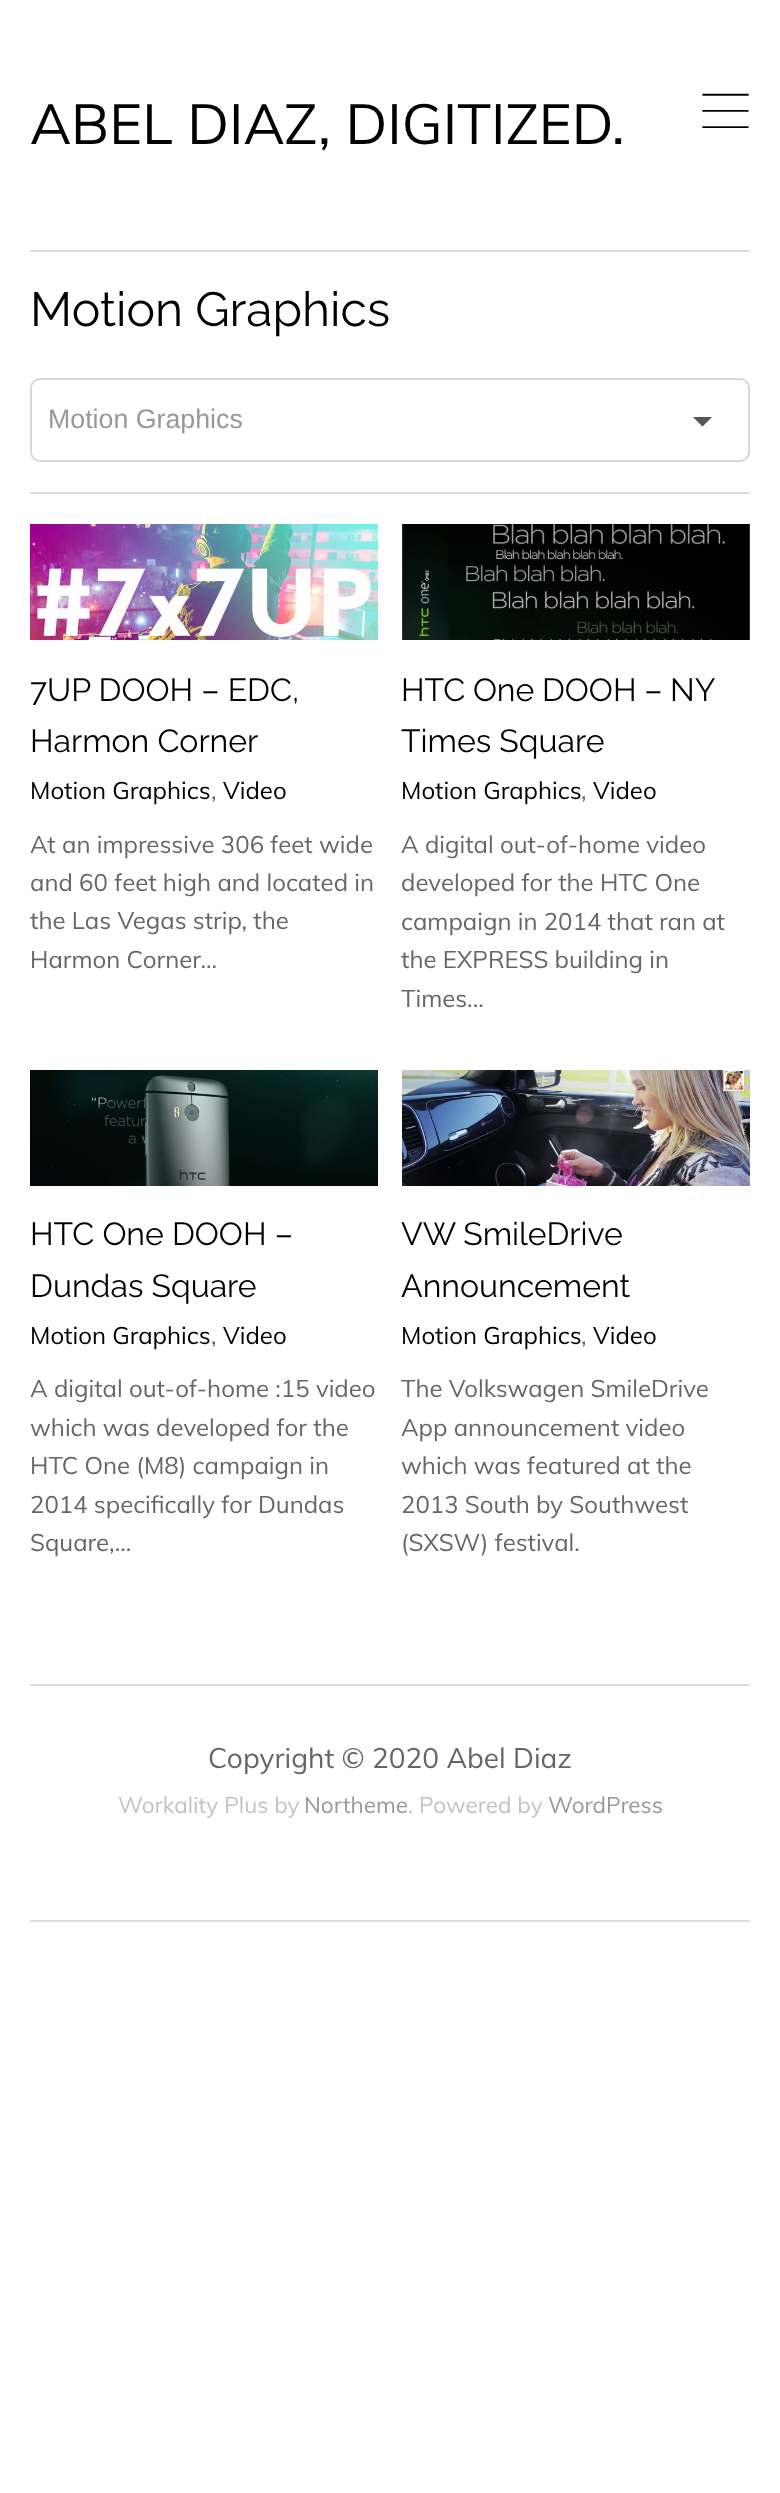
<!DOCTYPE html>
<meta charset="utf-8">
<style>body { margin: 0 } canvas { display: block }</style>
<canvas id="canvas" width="780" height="2493"></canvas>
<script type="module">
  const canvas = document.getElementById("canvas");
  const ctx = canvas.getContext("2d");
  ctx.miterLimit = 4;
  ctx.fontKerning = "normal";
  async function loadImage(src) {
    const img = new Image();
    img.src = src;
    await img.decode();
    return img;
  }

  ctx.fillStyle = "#ffffff";
  ctx.fillRect(0, 0, 780, 2493);
  ctx.fillStyle = "#dddddd";
  ctx.fillRect(30, 250, 720, 2);
  ctx.font = "56px Muli";
  ctx.fillStyle = "#000000";
  ctx.fillText("ABEL DIAZ, DIGITIZED.", 30, 144);
  ctx.font = "66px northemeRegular";
  ctx.fillText(",", 701, 134);
  ctx.fillStyle = "#dddddd";
  ctx.fillRect(30, 492, 720, 2);
  ctx.font = "48px Raleway";
  ctx.fillStyle = "#000000";
  ctx.fillText("Motion Graphics", 30, 326);
  ctx.drawImage(await loadImage("img1.png"), 693, 417, 19, 10);
  ctx.beginPath();
  ctx.roundRect(31, 379, 718, 82, 9);
  ctx.strokeStyle = "#d8d8d8";
  ctx.lineWidth = 2;
  ctx.stroke();
  ctx.font = "26.75px Liberation Sans";
  ctx.fillStyle = "#989898";
  ctx.fillText("Motion Graphics", 48, 428);
  ctx.drawImage(await loadImage("img2.png"), 30, 524, 348, 116);
  ctx.font = "32px Raleway";
  ctx.fillStyle = "#000000";
  ctx.fillText("7UP DOOH – EDC,", 30, 701);
  ctx.fillText("Harmon Corner", 30, 752);
  ctx.font = "24px Muli";
  ctx.fillText("Motion Graphics", 30, 799);
  ctx.fillStyle = "#666666";
  ctx.fillText(",", 211, 799);
  ctx.fillStyle = "#000000";
  ctx.fillText("Video", 223, 799);
  ctx.fillStyle = "#666666";
  ctx.fillText("At an impressive 306 feet wide", 30, 853);
  ctx.fillText("and 60 feet high and located in", 30, 891);
  ctx.fillText("the Las Vegas strip, the", 30, 929);
  ctx.fillText("Harmon Corner...", 30, 968);
  ctx.drawImage(await loadImage("img3.png"), 402, 524, 348, 116);
  ctx.wordSpacing = "-0.5px";
  ctx.font = "32px Raleway";
  ctx.fillStyle = "#000000";
  ctx.fillText("HTC One DOOH – NY", 401, 701);
  ctx.wordSpacing = "0px";
  ctx.fillText("Times Square", 401, 752);
  ctx.font = "24px Muli";
  ctx.fillText("Motion Graphics", 401, 799);
  ctx.fillStyle = "#666666";
  ctx.fillText(",", 581, 799);
  ctx.fillStyle = "#000000";
  ctx.fillText("Video", 593, 799);
  ctx.fillStyle = "#666666";
  ctx.fillText("A digital out-of-home video", 401, 853);
  ctx.fillText("developed for the HTC One", 401, 891);
  ctx.fillText("campaign in 2014 that ran at", 401, 930);
  ctx.fillText("the EXPRESS building in", 401, 968);
  ctx.fillText("Times...", 401, 1007);
  ctx.drawImage(await loadImage("img4.png"), 30, 1070, 348, 116);
  ctx.font = "32px Raleway";
  ctx.fillStyle = "#000000";
  ctx.fillText("HTC One DOOH –", 30, 1245);
  ctx.fillText("Dundas Square", 30, 1297);
  ctx.font = "24px Muli";
  ctx.fillText("Motion Graphics", 30, 1344);
  ctx.fillStyle = "#666666";
  ctx.fillText(",", 211, 1344);
  ctx.fillStyle = "#000000";
  ctx.fillText("Video", 223, 1344);
  ctx.fillStyle = "#666666";
  ctx.fillText("A digital out-of-home :15 video", 30, 1397);
  ctx.fillText("which was developed for the", 30, 1436);
  ctx.fillText("HTC One (M8) campaign in", 30, 1474);
  ctx.fillText("2014 specifically for Dundas", 30, 1513);
  ctx.fillText("Square,...", 30, 1551);
  ctx.drawImage(await loadImage("img5.png"), 402, 1070, 348, 116);
  ctx.font = "32px Raleway";
  ctx.fillStyle = "#000000";
  ctx.fillText("VW SmileDrive", 401, 1245);
  ctx.fillText("Announcement", 401, 1297);
  ctx.font = "24px Muli";
  ctx.fillText("Motion Graphics", 401, 1344);
  ctx.fillStyle = "#666666";
  ctx.fillText(",", 581, 1344);
  ctx.fillStyle = "#000000";
  ctx.fillText("Video", 593, 1344);
  ctx.fillStyle = "#666666";
  ctx.fillText("The Volkswagen SmileDrive", 401, 1397);
  ctx.fillText("App announcement video", 401, 1436);
  ctx.fillText("which was featured at the", 401, 1474);
  ctx.fillText("2013 South by Southwest", 401, 1513);
  ctx.fillText("(SXSW) festival.", 401, 1551);
  ctx.fillStyle = "#dddddd";
  ctx.fillRect(30, 1684, 720, 2);
  ctx.fillRect(30, 1920, 720, 2);
  ctx.font = "28px Muli";
  ctx.fillStyle = "#666666";
  ctx.fillText("Copyright © 2020 Abel Diaz", 208, 1768);
  ctx.font = "22.5px Muli";
  ctx.fillStyle = "#c2c2c2";
  ctx.fillText("Workality Plus by", 118, 1813);
  ctx.fillStyle = "#989898";
  ctx.fillText("Northeme", 304, 1813);
  ctx.fillStyle = "#c2c2c2";
  ctx.fillText(". Powered by", 408, 1813);
  ctx.fillStyle = "#989898";
  ctx.fillText("WordPress", 548, 1813);
</script>
